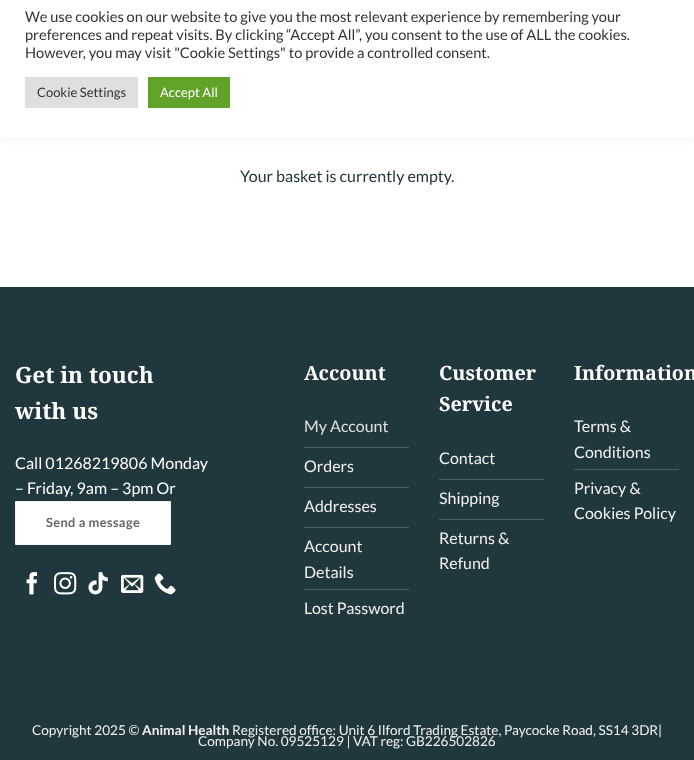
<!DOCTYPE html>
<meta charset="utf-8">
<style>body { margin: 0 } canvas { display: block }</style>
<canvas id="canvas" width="694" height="760"></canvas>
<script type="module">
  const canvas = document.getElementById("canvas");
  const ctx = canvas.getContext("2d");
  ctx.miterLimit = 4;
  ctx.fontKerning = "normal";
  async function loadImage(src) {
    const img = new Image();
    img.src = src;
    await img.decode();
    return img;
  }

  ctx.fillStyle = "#ffffff";
  ctx.fillRect(0, 0, 694, 760);
  ctx.fillStyle = "rgba(172, 171, 171, 0.3)";
  ctx.filter = "blur(5px)";
  ctx.beginPath();
  ctx.rect(0, -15, 694, 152);
  ctx.fill();
  ctx.filter = "none";
  ctx.fillStyle = "#ffffff";
  ctx.fillRect(0, 0, 694, 138);
  ctx.font = "14.65px Lato";
  ctx.fillStyle = "#333333";
  ctx.fillText("We use cookies on our website to give you the most relevant experience by remembering your", 25, 22);
  ctx.fillText("preferences and repeat visits. By clicking “Accept All”, you consent to the use of ALL the cookies.", 25, 40);
  ctx.fillText("However, you may visit \"Cookie Settings\" to provide a controlled consent.", 25, 58);
  ctx.fillStyle = "#dedfe0";
  ctx.fillRect(25, 77, 113, 31);
  ctx.font = "13px Lato";
  ctx.fillStyle = "#333333";
  ctx.fillText("Cookie Settings", 37, 97);
  ctx.fillStyle = "#61a229";
  ctx.fillRect(148, 77, 82, 31);
  ctx.fillStyle = "#ffffff";
  ctx.fillText("Accept All", 160, 97);
  ctx.font = "16px Lato";
  ctx.fillStyle = "#20373d";
  ctx.fillText("Your basket is currently empty.", 240, 182);
  ctx.fillRect(0, 287, 694, 473);
  ctx.font = "bold 22.5px Noto Serif";
  ctx.fillStyle = "#ffffff";
  ctx.fillText("Get in touch", 15, 383);
  ctx.fillText("with us", 15, 419);
  ctx.font = "16px Lato";
  ctx.fillText("Call 01268219806 Monday", 15, 469);
  ctx.fillText("– Friday, 9am – 3pm Or", 15, 494);
  ctx.beginPath();
  ctx.rect(15.5, 501.5, 155, 43);
  ctx.fill();
  ctx.strokeStyle = "#f2f2f2";
  ctx.stroke();
  ctx.letterSpacing = "0.4px";
  ctx.font = "bold 12.75px Lato";
  ctx.fillStyle = "#666666";
  ctx.fillText("Send a message", 46, 527);
  ctx.drawImage(await loadImage("img1.png"), 26, 572, 11, 23);
  ctx.drawImage(await loadImage("img2.png"), 54, 572, 23, 23);
  ctx.drawImage(await loadImage("img3.png"), 88, 572, 20, 23);
  ctx.drawImage(await loadImage("img4.png"), 121, 574, 23, 19);
  ctx.drawImage(await loadImage("img5.png"), 154, 573, 22, 22);
  ctx.letterSpacing = "0px";
  ctx.font = "bold 19.75px Noto Serif";
  ctx.fillStyle = "#ffffff";
  ctx.fillText("Account", 304, 380);
  ctx.fillStyle = "#4d5f64";
  ctx.fillRect(304, 447, 105, 1);
  ctx.font = "16px Lato";
  ctx.fillStyle = "#dee1e2";
  ctx.fillText("My Account", 304, 432);
  ctx.fillStyle = "#4d5f64";
  ctx.fillRect(304, 487, 105, 1);
  ctx.fillStyle = "#f1f1f1";
  ctx.fillText("Orders", 304, 472);
  ctx.fillStyle = "#4d5f64";
  ctx.fillRect(304, 527, 105, 1);
  ctx.fillStyle = "#f1f1f1";
  ctx.fillText("Addresses", 304, 512);
  ctx.fillStyle = "#4d5f64";
  ctx.fillRect(304, 589, 105, 1);
  ctx.fillStyle = "#f1f1f1";
  ctx.fillText("Account", 304, 552);
  ctx.fillText("Details", 304, 578);
  ctx.fillText("Lost Password", 304, 614);
  ctx.font = "bold 19.75px Noto Serif";
  ctx.fillStyle = "#ffffff";
  ctx.fillText("Customer", 439, 380);
  ctx.fillText("Service", 439, 411);
  ctx.fillStyle = "#4d5f64";
  ctx.fillRect(439, 479, 105, 1);
  ctx.font = "16px Lato";
  ctx.fillStyle = "#f1f1f1";
  ctx.fillText("Contact", 439, 464);
  ctx.fillStyle = "#4d5f64";
  ctx.fillRect(439, 519, 105, 1);
  ctx.fillStyle = "#f1f1f1";
  ctx.fillText("Shipping", 439, 504);
  ctx.fillText("Returns &", 439, 544);
  ctx.fillText("Refund", 439, 569);
  ctx.font = "bold 19.75px Noto Serif";
  ctx.fillStyle = "#ffffff";
  ctx.fillText("Information", 574, 380);
  ctx.fillStyle = "#4d5f64";
  ctx.fillRect(574, 469, 105, 1);
  ctx.font = "16px Lato";
  ctx.fillStyle = "#f1f1f1";
  ctx.fillText("Terms &", 574, 432);
  ctx.fillText("Conditions", 574, 458);
  ctx.fillText("Privacy &", 574, 494);
  ctx.fillText("Cookies Policy", 574, 519);
  ctx.font = "13.6px Lato";
  ctx.fillText("Copyright 2025 ©", 32, 735);
  ctx.font = "bold 13.6px Lato";
  ctx.fillText("Animal Health", 142, 735);
  ctx.font = "13.6px Lato";
  ctx.fillText("Registered office: Unit 6 Ilford Trading Estate, Paycocke Road, SS14 3DR|", 232, 735);
  ctx.fillText("Company No. 09525129 | VAT reg: GB226502826", 198, 746);
</script>
